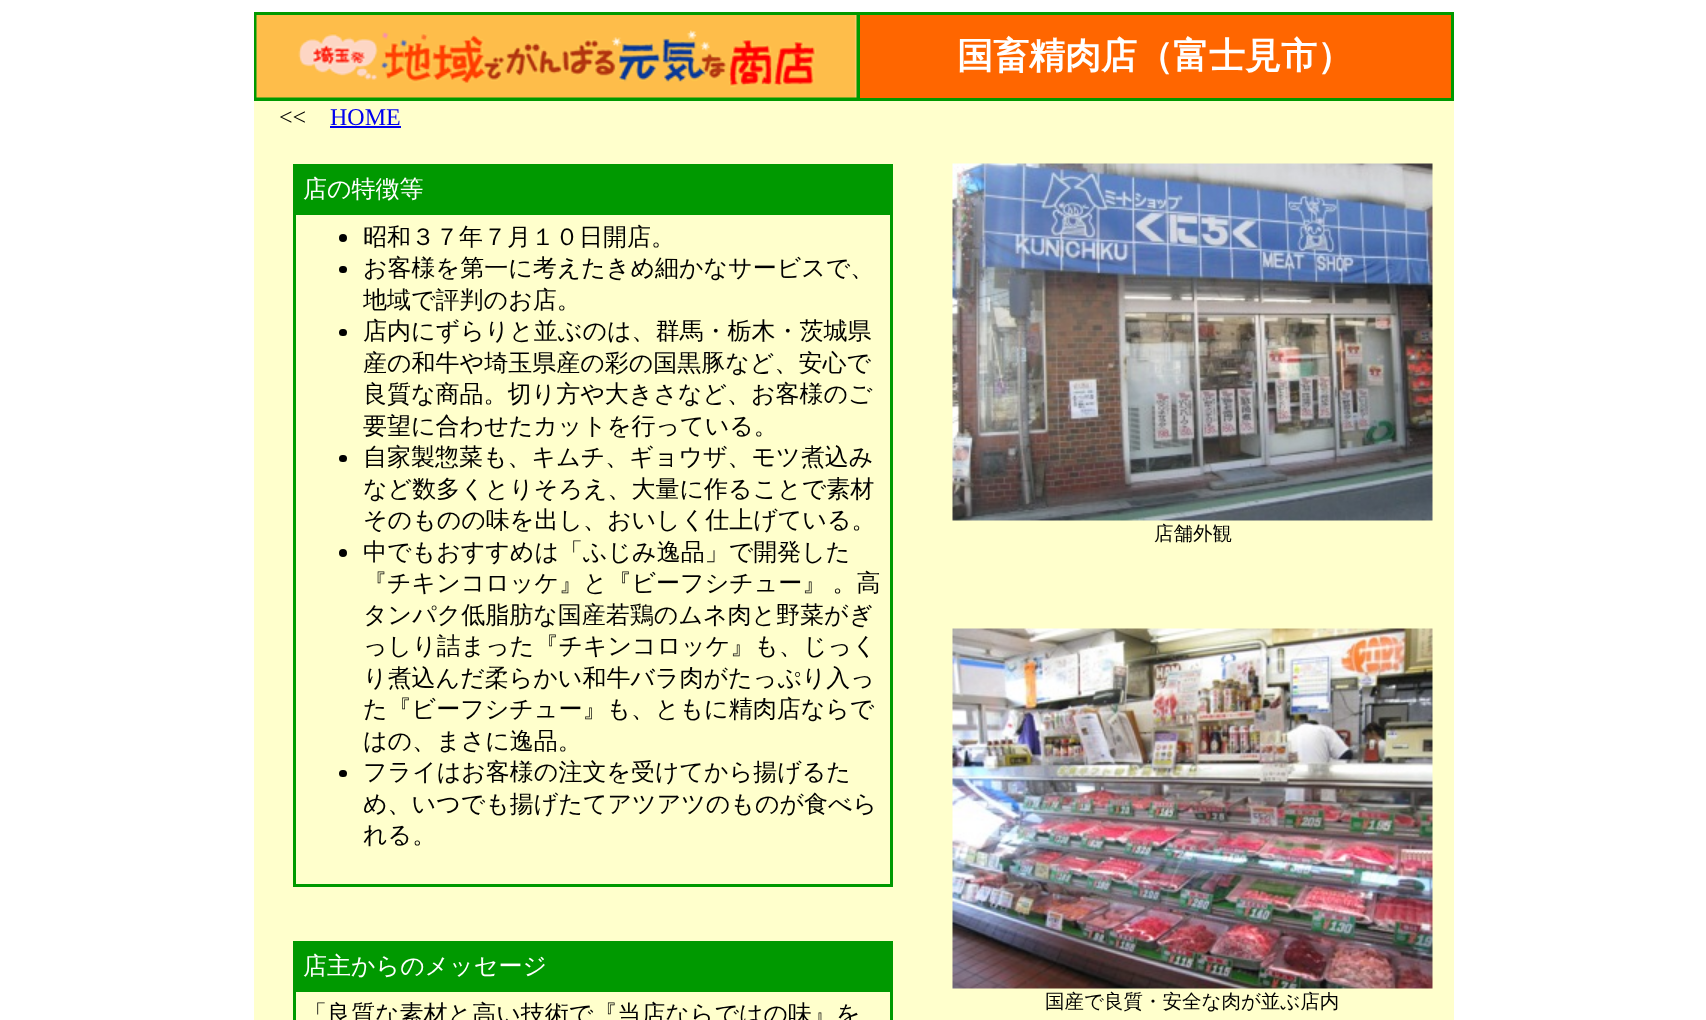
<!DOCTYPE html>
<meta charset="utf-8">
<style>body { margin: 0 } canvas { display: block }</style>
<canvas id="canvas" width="1706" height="1020"></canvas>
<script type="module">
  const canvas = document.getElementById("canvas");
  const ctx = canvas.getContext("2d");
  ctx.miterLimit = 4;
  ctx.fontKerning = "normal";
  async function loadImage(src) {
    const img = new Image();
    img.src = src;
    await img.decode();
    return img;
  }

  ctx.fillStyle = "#ffffff";
  ctx.fillRect(0, 0, 1706, 1020);
  ctx.fillStyle = "#009900";
  ctx.fillRect(254, 12, 1200, 89);
  ctx.drawImage(await loadImage("img1.png"), 256, 15, 601, 83);
  ctx.fillStyle = "#ff6600";
  ctx.fillRect(860, 15, 591, 83);
  ctx.font = "bold 36px WenQuanYi Zen Hei";
  ctx.fillStyle = "#ffffff";
  ctx.fillText("国畜精肉店（富士見市）", 957, 68);
  ctx.fillStyle = "#ffffcc";
  ctx.fillRect(254, 101, 1200, 919);
  ctx.font = "24px Liberation Serif";
  ctx.fillStyle = "#000000";
  ctx.fillText("<<", 279, 125);
  ctx.fillStyle = "#0000ee";
  ctx.fillText("HOME", 330, 125);
  ctx.fillRect(330, 126, 71, 2);
  ctx.fillStyle = "#009900";
  ctx.fillRect(293, 164, 600, 723);
  ctx.font = "500 24px WenQuanYi Zen Hei";
  ctx.fillStyle = "#ffffff";
  ctx.fillText("店の特徴等", 303, 197);
  ctx.fillStyle = "#ffffcc";
  ctx.fillRect(296, 215, 594, 669);
  ctx.fillStyle = "#000000";
  ctx.beginPath();
  ctx.arc(343, 238, 4, 0, Math.PI * 2);
  ctx.fill();
  ctx.fillText("昭和３７年７月１０日開店。", 363, 245);
  ctx.beginPath();
  ctx.roundRect(339, 266, 8, 7, 3.5);
  ctx.fill();
  ctx.fillText("お客様を第一に考えたきめ細かなサービスで、", 363, 276);
  ctx.fillText("地域で評判のお店。", 363, 308);
  ctx.beginPath();
  ctx.roundRect(339, 329, 8, 7, 3.5);
  ctx.fill();
  ctx.fillText("店内にずらりと並ぶのは、群馬・栃木・茨城県", 363, 339);
  ctx.fillText("産の和牛や埼玉県産の彩の国黒豚など、安心で", 363, 371);
  ctx.fillText("良質な商品。切り方や大きさなど、お客様のご", 363, 402);
  ctx.fillText("要望に合わせたカットを行っている。", 363, 434);
  ctx.beginPath();
  ctx.roundRect(339, 455, 8, 7, 3.5);
  ctx.fill();
  ctx.fillText("自家製惣菜も、キムチ、ギョウザ、モツ煮込み", 363, 465);
  ctx.fillText("など数多くとりそろえ、大量に作ることで素材", 363, 497);
  ctx.fillText("そのものの味を出し、おいしく仕上げている。", 363, 528);
  ctx.beginPath();
  ctx.arc(343, 553, 4, 0, Math.PI * 2);
  ctx.fill();
  ctx.fillText("中でもおすすめは「ふじみ逸品」で開発した", 363, 560);
  ctx.wordSpacing = "-1px";
  ctx.fillText("『チキンコロッケ』と『ビーフシチュー』 。高", 363, 591);
  ctx.wordSpacing = "0px";
  ctx.fillText("タンパク低脂肪な国産若鶏のムネ肉と野菜がぎ", 363, 623);
  ctx.fillText("っしり詰まった『チキンコロッケ』も、じっく", 363, 654);
  ctx.fillText("り煮込んだ柔らかい和牛バラ肉がたっぷり入っ", 363, 686);
  ctx.fillText("た『ビーフシチュー』も、ともに精肉店ならで", 363, 717);
  ctx.fillText("はの、まさに逸品。", 363, 749);
  ctx.beginPath();
  ctx.roundRect(339, 770, 8, 7, 3.5);
  ctx.fill();
  ctx.fillText("フライはお客様の注文を受けてから揚げるた", 363, 780);
  ctx.fillText("め、いつでも揚げたてアツアツのものが食べら", 363, 812);
  ctx.fillText("れる。", 363, 843);
  ctx.fillStyle = "#009900";
  ctx.fillRect(293, 941, 600, 79);
  ctx.fillStyle = "#ffffff";
  ctx.fillText("店主からのメッセージ", 303, 974);
  ctx.fillStyle = "#ffffcc";
  ctx.fillRect(296, 992, 594, 28);
  ctx.fillStyle = "#000000";
  ctx.fillText("「良質な素材と高い技術で『当店ならではの味』を", 303, 1022);
  ctx.drawImage(await loadImage("img2.png"), 952, 163, 481, 358);
  ctx.font = "500 19.5px WenQuanYi Zen Hei";
  ctx.fillText("店舗外観", 1154, 540);
  ctx.drawImage(await loadImage("img3.png"), 952, 628, 481, 361);
  ctx.fillText("国産で良質・安全な肉が並ぶ店内", 1045, 1008);
</script>
